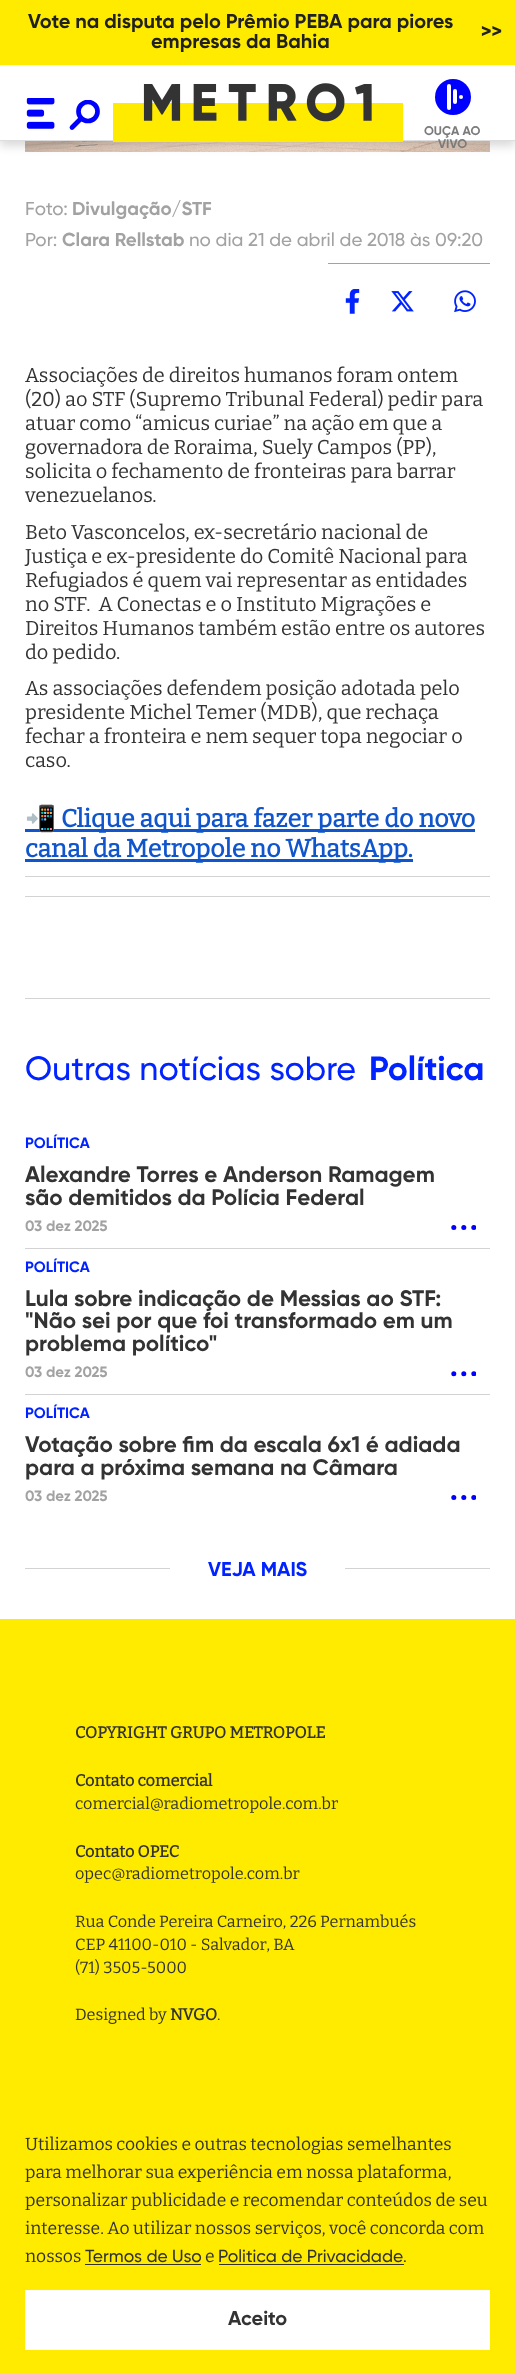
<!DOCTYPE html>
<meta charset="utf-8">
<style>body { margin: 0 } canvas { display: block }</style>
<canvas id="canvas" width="515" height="2374"></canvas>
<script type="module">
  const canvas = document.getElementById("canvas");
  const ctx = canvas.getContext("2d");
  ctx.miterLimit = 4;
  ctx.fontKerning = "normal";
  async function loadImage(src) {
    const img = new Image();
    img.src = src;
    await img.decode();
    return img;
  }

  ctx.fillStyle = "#ffffff";
  ctx.fillRect(0, 0, 515, 2374);
  ctx.drawImage(await loadImage("img3.png"), 25, 141, 465, 11);
  ctx.fillStyle = "rgba(0, 0, 0, 0.15)";
  ctx.filter = "blur(5px)";
  ctx.beginPath();
  ctx.rect(0, 5, 515, 141);
  ctx.fill();
  ctx.filter = "none";
  ctx.fillStyle = "#ffffff";
  ctx.fillRect(0, 65, 515, 75);
  ctx.fillStyle = "#dddddd";
  ctx.fillRect(0, 140, 515, 1);
  ctx.fillStyle = "#ffeb00";
  ctx.fillRect(0, 0, 515, 65);
  ctx.font = "bold 20px Gilroy";
  ctx.fillStyle = "#212121";
  ctx.fillText("Vote na disputa pelo Prêmio PEBA para piores", 28, 28);
  ctx.fillText("empresas da Bahia", 151, 48);
  ctx.fillText(">>", 481, 38);
  ctx.drawImage(await loadImage("img1.png"), 26, 98, 29, 31);
  ctx.save();
  ctx.beginPath();
  ctx.rect(69, 100, 31, 30);
  ctx.clip();
  ctx.beginPath();
  ctx.arc(88, 111.5, 9.5, 0, Math.PI * 2);
  ctx.strokeStyle = "#0000ff";
  ctx.lineWidth = 4.7;
  ctx.stroke();
  ctx.restore();
  ctx.beginPath();
  ctx.moveTo(81, 118.5);
  ctx.lineTo(72, 127.5);
  ctx.strokeStyle = "#0000ff";
  ctx.lineWidth = 4.7;
  ctx.lineCap = "round";
  ctx.stroke();
  ctx.drawImage(await loadImage("img2.png"), 113, 83, 290, 59);
  ctx.fillStyle = "#0000ff";
  ctx.beginPath();
  ctx.arc(453, 97, 18, 0, Math.PI * 2);
  ctx.fill();
  ctx.fillStyle = "#ffffff";
  ctx.beginPath();
  ctx.roundRect(447, 84, 4, 26, 2);
  ctx.fill();
  ctx.beginPath();
  ctx.roundRect(453, 89, 4, 15, 2);
  ctx.fill();
  ctx.beginPath();
  ctx.arc(461, 97, 2, 0, Math.PI * 2);
  ctx.fill();
  ctx.font = "bold 12.5px Gilroy";
  ctx.fillStyle = "#7b7b7b";
  ctx.fillText("OUÇA AO", 424, 135);
  ctx.fillText("VIVO", 438, 148);
  ctx.font = "500 18.75px Gilroy";
  ctx.fillStyle = "#a2a2a2";
  ctx.fillText("Foto:", 25, 215);
  ctx.font = "bold 18.75px Gilroy";
  ctx.fillText("Divulgação/STF", 72, 215);
  ctx.font = "500 18.75px Gilroy";
  ctx.fillText("Por:", 25, 246);
  ctx.font = "bold 18.75px Gilroy";
  ctx.fillText("Clara Rellstab", 62, 246);
  ctx.font = "500 18.75px Gilroy";
  ctx.fillText("no dia 21 de abril de 2018 às 09:20", 189, 246);
  ctx.fillRect(328, 263, 162, 1);
  ctx.drawImage(await loadImage("img4.png"), 345, 289, 15, 25);
  ctx.drawImage(await loadImage("img5.png"), 391, 291, 23, 21);
  ctx.drawImage(await loadImage("img6.png"), 454, 290, 22, 23);
  ctx.font = "20px Bitter";
  ctx.fillStyle = "#333333";
  ctx.fillText("Associações de direitos humanos foram ontem", 25, 382);
  ctx.fillText("(20) ao STF (Supremo Tribunal Federal) pedir para", 25, 406);
  ctx.fillText("atuar como “amicus curiae” na ação em que a", 25, 430);
  ctx.fillText("governadora de Roraima, Suely Campos (PP),", 25, 454);
  ctx.fillText("solicita o fechamento de fronteiras para barrar", 25, 478);
  ctx.fillText("venezuelanos.", 25, 502);
  ctx.fillText("Beto Vasconcelos, ex-secretário nacional de", 25, 539);
  ctx.fillText("Justiça e ex-presidente do Comitê Nacional para", 25, 563);
  ctx.fillText("Refugiados é quem vai representar as entidades", 25, 587);
  ctx.fillText("no STF.  A Conectas e o Instituto Migrações e", 25, 611);
  ctx.fillText("Direitos Humanos também estão entre os autores", 25, 635);
  ctx.fillText("do pedido.", 25, 659);
  ctx.fillText("As associações defendem posição adotada pelo", 25, 695);
  ctx.fillText("presidente Michel Temer (MDB), que rechaça", 25, 719);
  ctx.fillText("fechar a fronteira e nem sequer topa negociar o", 25, 743);
  ctx.fillText("caso.", 25, 767);
  ctx.fillStyle = "#d3d3d3";
  ctx.fillRect(25, 876, 465, 1);
  ctx.fillStyle = "#1155cc";
  ctx.fillRect(25, 829, 450, 3);
  ctx.font = "bold 25px Noto Color Emoji";
  ctx.fillText("📲", 25, 827);
  ctx.font = "bold 25px Bitter";
  ctx.fillText("Clique aqui para fazer parte do novo", 61, 827);
  ctx.fillRect(25, 859, 388, 3);
  ctx.fillText("canal da Metropole no WhatsApp.", 25, 857);
  ctx.fillStyle = "#d3d3d3";
  ctx.fillRect(25, 896, 465, 1);
  ctx.fillRect(25, 998, 465, 1);
  ctx.font = "500 33.75px Gilroy";
  ctx.fillStyle = "#0023ff";
  ctx.fillText("Outras notícias sobre", 25, 1080);
  ctx.font = "bold 33.75px Gilroy";
  ctx.fillText("Política", 369, 1080);
  ctx.fillStyle = "#d3d3d3";
  ctx.fillRect(25, 1248, 465, 1);
  ctx.font = "bold 15px Gilroy";
  ctx.fillStyle = "#0023ff";
  ctx.fillText("POLÍTICA", 25, 1148);
  ctx.font = "bold 22.5px Gilroy";
  ctx.fillStyle = "#333333";
  ctx.fillText("Alexandre Torres e Anderson Ramagem", 25, 1182);
  ctx.fillText("são demitidos da Polícia Federal", 25, 1205);
  ctx.font = "bold 15px Gilroy";
  ctx.fillStyle = "#a2a2a2";
  ctx.fillText("03 dez 2025", 25, 1231);
  ctx.fillStyle = "#0000ff";
  ctx.beginPath();
  ctx.arc(453.8, 1227.5, 2.5, 0, Math.PI * 2);
  ctx.fill();
  ctx.beginPath();
  ctx.arc(463.8, 1227.5, 2.5, 0, Math.PI * 2);
  ctx.fill();
  ctx.save();
  ctx.beginPath();
  ctx.rect(451, 1225, 25, 5);
  ctx.clip();
  ctx.beginPath();
  ctx.arc(473.8, 1227.5, 2.5, 0, Math.PI * 2);
  ctx.fill();
  ctx.restore();
  ctx.fillStyle = "#d3d3d3";
  ctx.fillRect(25, 1394, 465, 1);
  ctx.fillStyle = "#0023ff";
  ctx.fillText("POLÍTICA", 25, 1272);
  ctx.font = "bold 22.5px Gilroy";
  ctx.fillStyle = "#333333";
  ctx.fillText("Lula sobre indicação de Messias ao STF:", 25, 1306);
  ctx.fillText("\"Não sei por que foi transformado em um", 25, 1328);
  ctx.fillText("problema político\"", 25, 1351);
  ctx.font = "bold 15px Gilroy";
  ctx.fillStyle = "#a2a2a2";
  ctx.fillText("03 dez 2025", 25, 1377);
  ctx.fillStyle = "#0000ff";
  ctx.beginPath();
  ctx.arc(453.8, 1373.8, 2.5, 0, Math.PI * 2);
  ctx.fill();
  ctx.beginPath();
  ctx.arc(463.8, 1373.8, 2.5, 0, Math.PI * 2);
  ctx.fill();
  ctx.save();
  ctx.beginPath();
  ctx.rect(451, 1371, 25, 5);
  ctx.clip();
  ctx.beginPath();
  ctx.arc(473.8, 1373.8, 2.5, 0, Math.PI * 2);
  ctx.fill();
  ctx.restore();
  ctx.fillStyle = "#0023ff";
  ctx.fillText("POLÍTICA", 25, 1418);
  ctx.font = "bold 22.5px Gilroy";
  ctx.fillStyle = "#333333";
  ctx.fillText("Votação sobre fim da escala 6x1 é adiada", 25, 1452);
  ctx.fillText("para a próxima semana na Câmara", 25, 1475);
  ctx.font = "bold 15px Gilroy";
  ctx.fillStyle = "#a2a2a2";
  ctx.fillText("03 dez 2025", 25, 1501);
  ctx.fillStyle = "#0000ff";
  ctx.beginPath();
  ctx.arc(453.8, 1497.5, 2.5, 0, Math.PI * 2);
  ctx.fill();
  ctx.beginPath();
  ctx.arc(463.8, 1497.5, 2.5, 0, Math.PI * 2);
  ctx.fill();
  ctx.save();
  ctx.beginPath();
  ctx.rect(451, 1495, 25, 5);
  ctx.clip();
  ctx.beginPath();
  ctx.arc(473.8, 1497.5, 2.5, 0, Math.PI * 2);
  ctx.fill();
  ctx.restore();
  ctx.fillStyle = "#d3d3d3";
  ctx.fillRect(25, 1568, 465, 1);
  ctx.fillStyle = "#ffffff";
  ctx.fillRect(170, 1568, 175, 1);
  ctx.font = "bold 20px Gilroy";
  ctx.fillStyle = "#0023ff";
  ctx.fillText("VEJA MAIS", 208, 1576);
  ctx.fillStyle = "#ffeb00";
  ctx.fillRect(0, 1619, 515, 755);
  ctx.font = "bold 16.25px Bitter";
  ctx.fillStyle = "#333333";
  ctx.fillText("COPYRIGHT GRUPO METROPOLE", 75, 1738);
  ctx.fillText("Contato comercial", 75, 1786);
  ctx.font = "16.25px Bitter";
  ctx.fillText("comercial@radiometropole.com.br", 75, 1809);
  ctx.font = "bold 16.25px Bitter";
  ctx.fillText("Contato OPEC", 75, 1857);
  ctx.font = "16.25px Bitter";
  ctx.fillText("opec@radiometropole.com.br", 75, 1879);
  ctx.fillText("Rua Conde Pereira Carneiro, 226 Pernambués", 75, 1927);
  ctx.fillText("CEP 41100-010 - Salvador, BA", 75, 1950);
  ctx.fillText("(71) 3505-5000", 75, 1973);
  ctx.fillText("Designed by", 75, 2020);
  ctx.font = "bold 16.25px Bitter";
  ctx.fillText("NVGO", 170, 2020);
  ctx.font = "16.25px Bitter";
  ctx.fillText(".", 217, 2020);
  ctx.font = "17.5px Bitter";
  ctx.fillText("Utilizamos cookies e outras tecnologias semelhantes", 25, 2150);
  ctx.fillText("para melhorar sua experiência em nossa plataforma,", 25, 2178);
  ctx.fillText("personalizar publicidade e recomendar conteúdos de seu", 25, 2206);
  ctx.fillText("interesse. Ao utilizar nossos serviços, você concorda com", 25, 2234);
  ctx.fillText("nossos", 25, 2262);
  ctx.font = "500 17.5px Gilroy";
  ctx.fillText("Termos de Uso", 85, 2262);
  ctx.fillRect(85, 2264, 116, 1);
  ctx.font = "17.5px Bitter";
  ctx.fillText("e", 205, 2262);
  ctx.font = "500 17.5px Gilroy";
  ctx.fillText("Politica de Privacidade", 218, 2262);
  ctx.fillRect(219, 2264, 185, 1);
  ctx.font = "17.5px Bitter";
  ctx.fillText(".", 403, 2262);
  ctx.fillStyle = "#ffffff";
  ctx.fillRect(25, 2290, 465, 60);
  ctx.font = "bold 20px Gilroy";
  ctx.fillStyle = "#333333";
  ctx.fillText("Aceito", 228, 2325);
</script>
